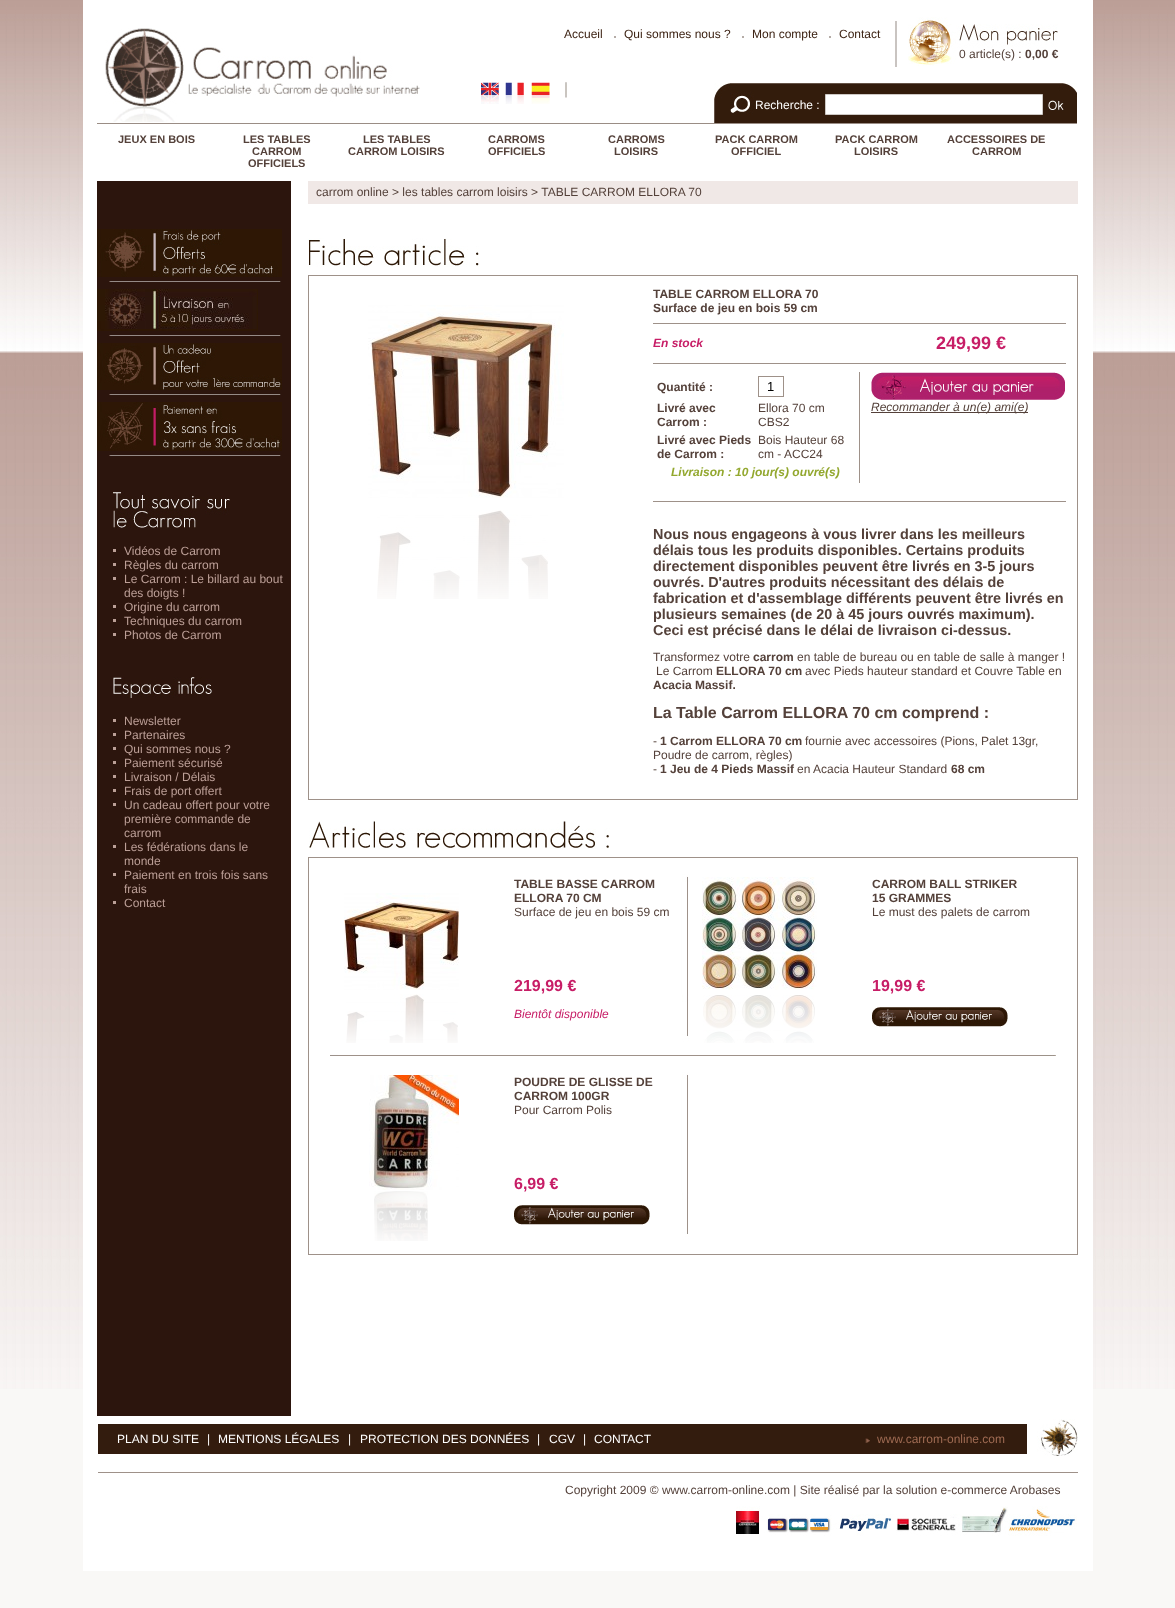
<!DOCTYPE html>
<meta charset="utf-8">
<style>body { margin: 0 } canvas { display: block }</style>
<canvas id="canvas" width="1175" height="1608"></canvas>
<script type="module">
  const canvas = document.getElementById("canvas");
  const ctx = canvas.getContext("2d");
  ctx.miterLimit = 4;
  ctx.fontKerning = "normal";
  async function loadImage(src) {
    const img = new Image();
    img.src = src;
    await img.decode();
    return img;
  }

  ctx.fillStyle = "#f9f8f6";
  ctx.fillRect(0, 0, 1175, 1608);
  ctx.drawImage(await loadImage("img1.png"), 0, 0, 1175, 1389);
  ctx.fillStyle = "#ffffff";
  ctx.fillRect(83, 0, 1010, 1571);
  ctx.fillStyle = "#2c150d";
  ctx.fillRect(97, 181, 194, 1235);
  ctx.drawImage(await loadImage("img2.png"), 105, 28, 315, 94);
  ctx.fillStyle = "#c9c4c1";
  ctx.fillRect(895, 21, 2, 46);
  ctx.font = "12px Liberation Sans";
  ctx.fillStyle = "#3d2314";
  ctx.fillText("Accueil", 564, 38);
  ctx.fillStyle = "#b5aca7";
  ctx.fillRect(614, 36, 2, 2);
  ctx.fillStyle = "#3d2314";
  ctx.fillText("Qui sommes nous ?", 624, 38);
  ctx.fillStyle = "#b5aca7";
  ctx.fillRect(742, 36, 2, 2);
  ctx.fillStyle = "#3d2314";
  ctx.fillText("Mon compte", 752, 38);
  ctx.fillStyle = "#b5aca7";
  ctx.fillRect(829, 36, 2, 2);
  ctx.fillStyle = "#3d2314";
  ctx.fillText("Contact", 839, 38);
  ctx.drawImage(await loadImage("img3.png"), 908, 17, 150, 49);
  ctx.fillStyle = "#54413a";
  ctx.fillText("0 article(s) :", 959, 58);
  ctx.font = "bold 12px Liberation Sans";
  ctx.fillText("0,00 €", 1025, 58);
  ctx.drawImage(await loadImage("img4.png"), 481, 82, 18, 22);
  ctx.drawImage(await loadImage("img5.png"), 505, 82, 19, 22);
  ctx.drawImage(await loadImage("img6.png"), 531, 82, 19, 22);
  ctx.drawImage(await loadImage("img7.png"), 565, 82, 2, 16);
  ctx.drawImage(await loadImage("img8.png"), 714, 83, 363, 40);
  ctx.font = "12px Liberation Sans";
  ctx.fillStyle = "#ffffff";
  ctx.fillText("Recherche :", 755, 109);
  ctx.beginPath();
  ctx.rect(825.5, 94.5, 217, 20);
  ctx.fill();
  ctx.strokeStyle = "#cdc8c4";
  ctx.stroke();
  ctx.drawImage(await loadImage("img9.png"), 1047, 100, 17, 11);
  ctx.fillStyle = "#9a8d85";
  ctx.fillRect(97, 123, 980, 1);
  ctx.font = "bold 11px Liberation Sans";
  ctx.fillStyle = "#54413a";
  ctx.fillText("JEUX EN BOIS", 118, 143);
  ctx.fillText("LES TABLES", 243, 143);
  ctx.fillText("CARROM", 252, 155);
  ctx.fillText("OFFICIELS", 248, 167);
  ctx.fillText("LES TABLES", 363, 143);
  ctx.fillText("CARROM LOISIRS", 348, 155);
  ctx.fillText("CARROMS", 488, 143);
  ctx.fillText("OFFICIELS", 488, 155);
  ctx.fillText("CARROMS", 608, 143);
  ctx.fillText("LOISIRS", 614, 155);
  ctx.fillText("PACK CARROM", 715, 143);
  ctx.fillText("OFFICIEL", 731, 155);
  ctx.fillText("PACK CARROM", 835, 143);
  ctx.fillText("LOISIRS", 854, 155);
  ctx.fillText("ACCESSOIRES DE", 947, 143);
  ctx.fillText("CARROM", 972, 155);
  ctx.drawImage(await loadImage("img10.png"), 109, 281, 172, 1);
  ctx.drawImage(await loadImage("img11.png"), 97, 229, 185, 48);
  ctx.drawImage(await loadImage("img10.png"), 109, 335, 172, 1);
  ctx.drawImage(await loadImage("img12.png"), 97, 289, 161, 42);
  ctx.drawImage(await loadImage("img10.png"), 109, 394, 172, 1);
  ctx.drawImage(await loadImage("img13.png"), 97, 343, 185, 47);
  ctx.drawImage(await loadImage("img10.png"), 109, 455, 172, 1);
  ctx.drawImage(await loadImage("img14.png"), 97, 402, 185, 49);
  ctx.drawImage(await loadImage("img15.png"), 113, 492, 117, 37);
  ctx.fillStyle = "#bba097";
  ctx.fillRect(113, 549, 3, 3);
  ctx.font = "12px Liberation Sans";
  ctx.fillStyle = "#bc9f97";
  ctx.fillText("Vidéos de Carrom", 124, 555);
  ctx.fillStyle = "#bba097";
  ctx.fillRect(113, 563, 3, 3);
  ctx.fillStyle = "#bc9f97";
  ctx.fillText("Règles du carrom", 124, 569);
  ctx.fillStyle = "#bba097";
  ctx.fillRect(113, 577, 3, 3);
  ctx.fillStyle = "#bc9f97";
  ctx.fillText("Le Carrom : Le billard au bout", 124, 583);
  ctx.fillText("des doigts !", 124, 597);
  ctx.fillStyle = "#bba097";
  ctx.fillRect(113, 605, 3, 3);
  ctx.fillStyle = "#bc9f97";
  ctx.fillText("Origine du carrom", 124, 611);
  ctx.fillStyle = "#bba097";
  ctx.fillRect(113, 619, 3, 3);
  ctx.fillStyle = "#bc9f97";
  ctx.fillText("Techniques du carrom", 124, 625);
  ctx.fillStyle = "#bba097";
  ctx.fillRect(113, 633, 3, 3);
  ctx.fillStyle = "#bc9f97";
  ctx.fillText("Photos de Carrom", 124, 639);
  ctx.drawImage(await loadImage("img16.png"), 113, 677, 99, 21);
  ctx.fillStyle = "#bba097";
  ctx.fillRect(113, 719, 3, 3);
  ctx.fillStyle = "#bc9f97";
  ctx.fillText("Newsletter", 124, 725);
  ctx.fillStyle = "#bba097";
  ctx.fillRect(113, 733, 3, 3);
  ctx.fillStyle = "#bc9f97";
  ctx.fillText("Partenaires", 124, 739);
  ctx.fillStyle = "#bba097";
  ctx.fillRect(113, 747, 3, 3);
  ctx.fillStyle = "#bc9f97";
  ctx.fillText("Qui sommes nous ?", 124, 753);
  ctx.fillStyle = "#bba097";
  ctx.fillRect(113, 761, 3, 3);
  ctx.fillStyle = "#bc9f97";
  ctx.fillText("Paiement sécurisé", 124, 767);
  ctx.fillStyle = "#bba097";
  ctx.fillRect(113, 775, 3, 3);
  ctx.fillStyle = "#bc9f97";
  ctx.fillText("Livraison / Délais", 124, 781);
  ctx.fillStyle = "#bba097";
  ctx.fillRect(113, 789, 3, 3);
  ctx.fillStyle = "#bc9f97";
  ctx.fillText("Frais de port offert", 124, 795);
  ctx.fillStyle = "#bba097";
  ctx.fillRect(113, 803, 3, 3);
  ctx.fillStyle = "#bc9f97";
  ctx.fillText("Un cadeau offert pour votre", 124, 809);
  ctx.fillText("première commande de", 124, 823);
  ctx.fillText("carrom", 124, 837);
  ctx.fillStyle = "#bba097";
  ctx.fillRect(113, 845, 3, 3);
  ctx.fillStyle = "#bc9f97";
  ctx.fillText("Les fédérations dans le", 124, 851);
  ctx.fillText("monde", 124, 865);
  ctx.fillStyle = "#bba097";
  ctx.fillRect(113, 873, 3, 3);
  ctx.fillStyle = "#bc9f97";
  ctx.fillText("Paiement en trois fois sans", 124, 879);
  ctx.fillText("frais", 124, 893);
  ctx.fillStyle = "#bba097";
  ctx.fillRect(113, 901, 3, 3);
  ctx.fillStyle = "#bc9f97";
  ctx.fillText("Contact", 124, 907);
  ctx.fillStyle = "#f0e8e6";
  ctx.fillRect(308, 181, 770, 23);
  ctx.fillStyle = "#54413a";
  ctx.fillText("carrom online > les tables carrom loisirs > TABLE CARROM ELLORA 70", 316, 196);
  ctx.drawImage(await loadImage("img17.png"), 308, 238, 171, 29);
  ctx.strokeStyle = "#9e9189";
  ctx.strokeRect(308.5, 275.5, 769, 524);
  ctx.drawImage(await loadImage("img18.png"), 368, 305, 196, 193);
  ctx.drawImage(await loadImage("img19.png"), 377, 510, 171, 89);
  ctx.font = "bold 12px Liberation Sans";
  ctx.fillText("TABLE CARROM ELLORA 70", 653, 298);
  ctx.fillText("Surface de jeu en bois 59 cm", 653, 312);
  ctx.fillStyle = "#9e9189";
  ctx.fillRect(653, 323, 413, 1);
  ctx.fillRect(653, 363, 413, 1);
  ctx.font = "italic bold 12px Liberation Sans";
  ctx.fillStyle = "#c71d66";
  ctx.fillText("En stock", 653, 347);
  ctx.font = "bold 18px Liberation Sans";
  ctx.fillText("249,99 €", 936, 349);
  ctx.fillStyle = "#9e9189";
  ctx.fillRect(859, 372, 1, 111);
  ctx.font = "bold 12px Liberation Sans";
  ctx.fillStyle = "#54413a";
  ctx.fillText("Quantité :", 657, 391);
  ctx.strokeRect(758.5, 376.5, 25, 20);
  ctx.font = "13px Liberation Sans";
  ctx.fillStyle = "#000000";
  ctx.fillText("1", 767, 391);
  ctx.font = "bold 12px Liberation Sans";
  ctx.fillStyle = "#54413a";
  ctx.fillText("Livré avec", 657, 412);
  ctx.fillText("Carrom :", 657, 426);
  ctx.font = "12px Liberation Sans";
  ctx.fillText("Ellora 70 cm", 758, 412);
  ctx.fillText("CBS2", 758, 426);
  ctx.font = "bold 12px Liberation Sans";
  ctx.fillText("Livré avec Pieds", 657, 444);
  ctx.fillText("de Carrom :", 657, 458);
  ctx.font = "12px Liberation Sans";
  ctx.fillText("Bois Hauteur 68", 758, 444);
  ctx.fillText("cm - ACC24", 758, 458);
  ctx.font = "italic bold 12px Liberation Sans";
  ctx.fillStyle = "#93a82f";
  ctx.fillText("Livraison : 10 jour(s) ouvré(s)", 671, 476);
  ctx.drawImage(await loadImage("img20.png"), 871, 372, 194, 28);
  ctx.fillStyle = "#54413a";
  ctx.fillRect(871, 412, 157, 1);
  ctx.font = "italic 12px Liberation Sans";
  ctx.fillText("Recommander à un(e) ami(e)", 871, 411);
  ctx.fillStyle = "#9e9189";
  ctx.fillRect(653, 501, 413, 1);
  ctx.font = "bold 14.4px Liberation Sans";
  ctx.fillStyle = "#54413a";
  ctx.fillText("Nous nous engageons à vous livrer dans les meilleurs", 653, 539);
  ctx.fillText("délais tous les produits disponibles. Certains produits", 653, 555);
  ctx.fillText("directement disponibles peuvent être livrés en 3-5 jours", 653, 571);
  ctx.fillText("ouvrés. D'autres produits nécessitant des délais de", 653, 587);
  ctx.fillText("fabrication et d'assemblage différents peuvent être livrés en", 653, 603);
  ctx.fillText("plusieurs semaines (de 20 à 45 jours ouvrés maximum).", 653, 619);
  ctx.fillText("Ceci est précisé dans le délai de livraison ci-dessus.", 653, 635);
  ctx.font = "12px Liberation Sans";
  ctx.fillText("Transformez votre", 653, 661);
  ctx.font = "bold 12px Liberation Sans";
  ctx.fillText("carrom", 753, 661);
  ctx.font = "12px Liberation Sans";
  ctx.fillText("en table de bureau ou en table de salle à manger !", 797, 661);
  ctx.fillText("Le Carrom", 656, 675);
  ctx.font = "bold 12px Liberation Sans";
  ctx.fillText("ELLORA 70 cm", 716, 675);
  ctx.font = "12px Liberation Sans";
  ctx.fillText("avec Pieds hauteur standard et Couvre Table en", 805, 675);
  ctx.font = "bold 12px Liberation Sans";
  ctx.fillText("Acacia Massif.", 653, 689);
  ctx.font = "bold 16px Liberation Sans";
  ctx.fillText("La Table Carrom ELLORA 70 cm comprend :", 653, 718);
  ctx.font = "12px Liberation Sans";
  ctx.fillText("-", 653, 745);
  ctx.font = "bold 12px Liberation Sans";
  ctx.fillText("1 Carrom ELLORA 70 cm", 660, 745);
  ctx.font = "12px Liberation Sans";
  ctx.fillText("fournie avec accessoires (Pions, Palet 13gr,", 805, 745);
  ctx.fillText("Poudre de carrom, règles)", 653, 759);
  ctx.fillText("-", 653, 773);
  ctx.font = "bold 12px Liberation Sans";
  ctx.fillText("1 Jeu de 4 Pieds Massif", 660, 773);
  ctx.font = "12px Liberation Sans";
  ctx.fillText("en Acacia Hauteur Standard", 797, 773);
  ctx.font = "bold 12px Liberation Sans";
  ctx.fillText("68 cm", 951, 773);
  ctx.drawImage(await loadImage("img21.png"), 309, 820, 301, 29);
  ctx.drawImage(await loadImage("img22.png"), 330, 858, 726, 395);
  ctx.strokeRect(308.5, 857.5, 769, 397);
  ctx.drawImage(await loadImage("img23.png"), 344, 893, 115, 97);
  ctx.drawImage(await loadImage("img24.png"), 346, 994, 112, 49);
  ctx.fillText("TABLE BASSE CARROM", 514, 888);
  ctx.fillText("ELLORA 70 CM", 514, 902);
  ctx.font = "12px Liberation Sans";
  ctx.fillText("Surface de jeu en bois 59 cm", 514, 916);
  ctx.font = "bold 16px Liberation Sans";
  ctx.fillStyle = "#c71d66";
  ctx.fillText("219,99 €", 514, 991);
  ctx.font = "italic 12px Liberation Sans";
  ctx.fillText("Bientôt disponible", 514, 1018);
  ctx.drawImage(await loadImage("img25.png"), 702, 877, 115, 113);
  ctx.drawImage(await loadImage("img26.png"), 703, 995, 112, 48);
  ctx.font = "bold 12px Liberation Sans";
  ctx.fillStyle = "#54413a";
  ctx.fillText("CARROM BALL STRIKER", 872, 888);
  ctx.fillText("15 GRAMMES", 872, 902);
  ctx.font = "12px Liberation Sans";
  ctx.fillText("Le must des palets de carrom", 872, 916);
  ctx.font = "bold 16px Liberation Sans";
  ctx.fillStyle = "#c71d66";
  ctx.fillText("19,99 €", 872, 991);
  ctx.drawImage(await loadImage("img27.png"), 872, 1007, 136, 20);
  ctx.drawImage(await loadImage("img28.png"), 369, 1075, 90, 115);
  ctx.drawImage(await loadImage("img29.png"), 374, 1191, 54, 50);
  ctx.font = "bold 12px Liberation Sans";
  ctx.fillStyle = "#54413a";
  ctx.fillText("POUDRE DE GLISSE DE", 514, 1086);
  ctx.fillText("CARROM 100GR", 514, 1100);
  ctx.font = "12px Liberation Sans";
  ctx.fillText("Pour Carrom Polis", 514, 1114);
  ctx.font = "bold 16px Liberation Sans";
  ctx.fillStyle = "#c71d66";
  ctx.fillText("6,99 €", 514, 1189);
  ctx.drawImage(await loadImage("img27.png"), 514, 1205, 136, 20);
  ctx.fillStyle = "#331c0e";
  ctx.fillRect(98, 1424, 929, 30);
  ctx.font = "12px Liberation Sans";
  ctx.fillStyle = "#ffffff";
  ctx.fillText("PLAN DU SITE", 117, 1443);
  ctx.fillText("|", 207, 1443);
  ctx.fillText("MENTIONS LÉGALES", 218, 1443);
  ctx.fillText("|", 348, 1443);
  ctx.fillText("PROTECTION DES DONNÉES", 360, 1443);
  ctx.fillText("|", 537, 1443);
  ctx.fillText("CGV", 549, 1443);
  ctx.fillText("|", 583, 1443);
  ctx.fillText("CONTACT", 594, 1443);
  ctx.drawImage(await loadImage("img30.png"), 865, 1438, 5, 5);
  ctx.fillStyle = "#9f6b53";
  ctx.fillText("www.carrom-online.com", 877, 1443);
  ctx.drawImage(await loadImage("img31.png"), 1037, 1419, 41, 37);
  ctx.drawImage(await loadImage("img32.png"), 736, 1506, 341, 30);
  ctx.fillStyle = "#9e9189";
  ctx.fillRect(98, 1472, 980, 1);
  ctx.fillStyle = "#54413a";
  ctx.fillText("Copyright 2009 © www.carrom-online.com | Site réalisé par la solution e-commerce Arobases", 565, 1494);
</script>
